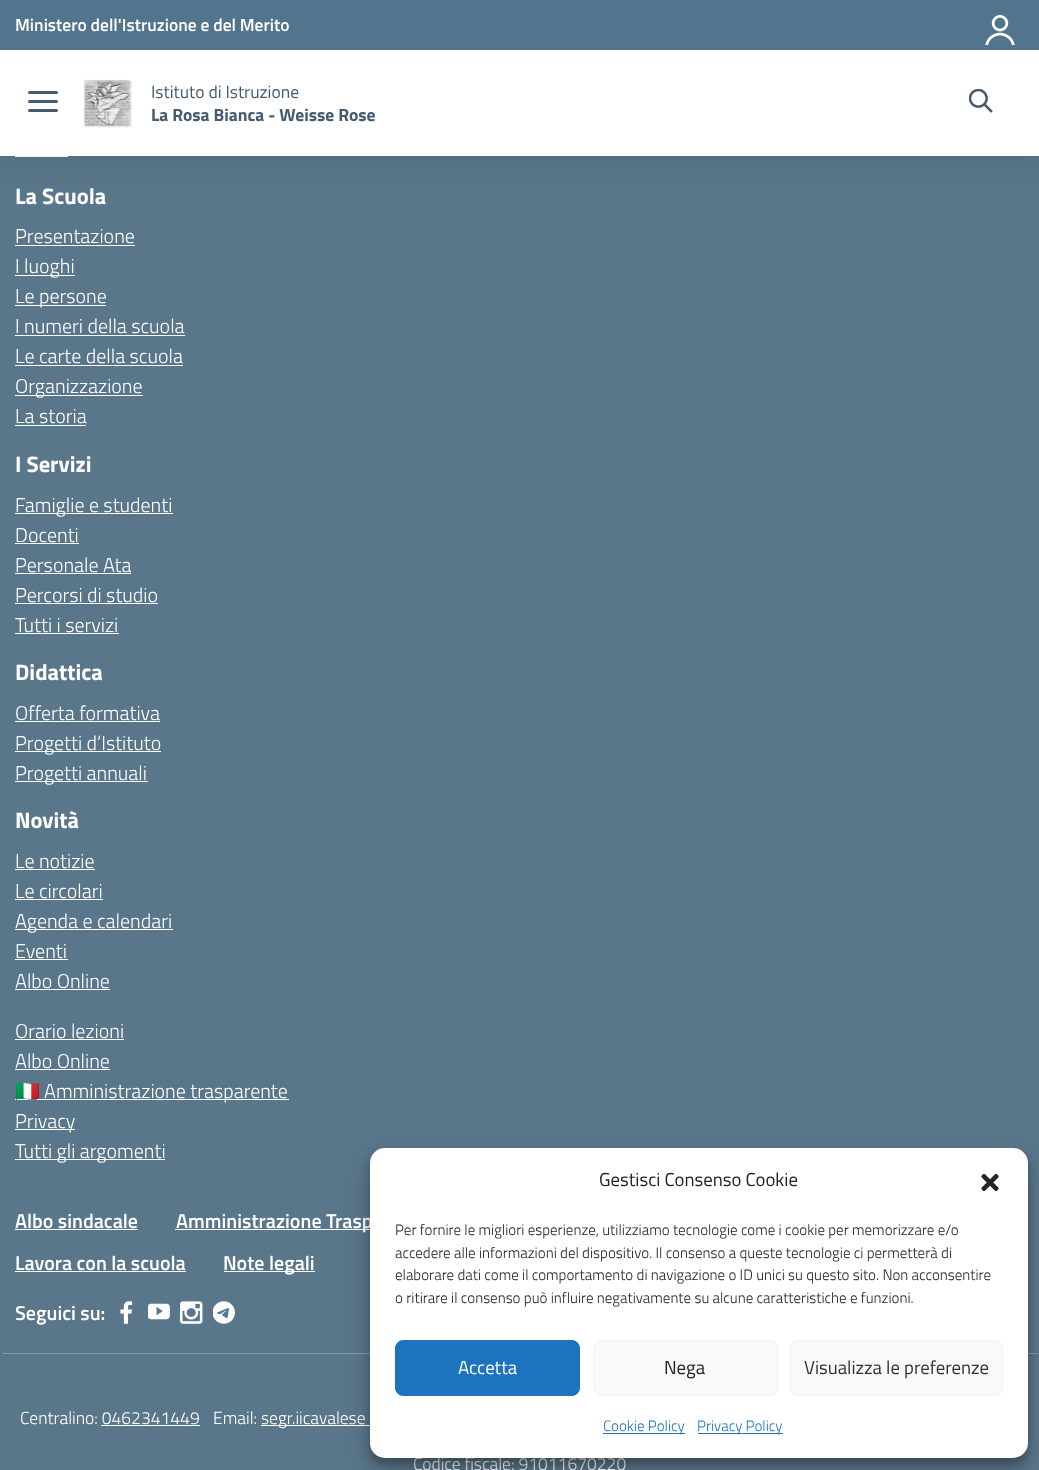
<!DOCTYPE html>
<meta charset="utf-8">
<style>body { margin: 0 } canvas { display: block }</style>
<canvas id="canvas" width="1039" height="1470"></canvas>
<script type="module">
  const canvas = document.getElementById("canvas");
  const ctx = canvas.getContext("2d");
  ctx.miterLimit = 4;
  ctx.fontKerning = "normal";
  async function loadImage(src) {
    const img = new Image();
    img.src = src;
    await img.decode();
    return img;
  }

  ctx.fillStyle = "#5a768a";
  ctx.fillRect(0, 0, 1039, 1470);
  ctx.fillStyle = "#ffffff";
  ctx.fillRect(15, 156, 53, 1);
  ctx.fillStyle = "rgba(0, 0, 0, 0.1)";
  ctx.filter = "blur(15.5px)";
  ctx.beginPath();
  ctx.rect(0, 3, 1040, 156);
  ctx.fill();
  ctx.filter = "none";
  ctx.fillStyle = "#ffffff";
  ctx.fillRect(0, 50, 1039, 106);
  ctx.fillStyle = "#51758d";
  ctx.fillRect(0, 0, 1039, 50);
  ctx.font = "600 17.5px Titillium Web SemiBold";
  ctx.fillStyle = "#ffffff";
  ctx.fillText("Ministero dell'Istruzione e del Merito", 15, 31);
  ctx.drawImage(await loadImage("img1.png"), 985, 15, 30, 30);
  ctx.fillStyle = "#455b71";
  ctx.beginPath();
  ctx.roundRect(28, 100, 30, 3, 1.5);
  ctx.fill();
  ctx.beginPath();
  ctx.roundRect(28, 91, 30, 3, 1.5);
  ctx.fill();
  ctx.beginPath();
  ctx.roundRect(28, 109, 30, 3, 1.5);
  ctx.fill();
  ctx.drawImage(await loadImage("img2.png"), 83, 79, 50, 49);
  ctx.font = "17.6px Titillium Web";
  ctx.fillText("Istituto di Istruzione", 151, 98);
  ctx.font = "bold 17.6px Titillium Web";
  ctx.fillText("La Rosa Bianca - Weisse Rose", 151, 121);
  ctx.drawImage(await loadImage("img3.png"), 969, 89, 24, 24);
  ctx.font = "bold 22.5px Titillium Web";
  ctx.fillStyle = "#ffffff";
  ctx.fillText("La Scuola", 15, 204);
  ctx.font = "300 20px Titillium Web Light";
  ctx.fillText("Presentazione", 15, 243);
  ctx.fillRect(15, 245, 120, 1);
  ctx.fillRect(15, 275, 60, 1);
  ctx.fillText("I luoghi", 15, 273);
  ctx.fillRect(15, 305, 91, 1);
  ctx.fillText("Le persone", 15, 303);
  ctx.fillText("I numeri della scuola", 15, 333);
  ctx.fillRect(15, 335, 170, 1);
  ctx.fillText("Le carte della scuola", 15, 363);
  ctx.fillRect(15, 365, 168, 1);
  ctx.fillRect(15, 395, 128, 1);
  ctx.fillText("Organizzazione", 15, 393);
  ctx.fillText("La storia", 15, 423);
  ctx.fillRect(15, 425, 71, 1);
  ctx.font = "bold 22.5px Titillium Web";
  ctx.fillText("I Servizi", 15, 472);
  ctx.fillRect(15, 513, 158, 1);
  ctx.font = "300 20px Titillium Web Light";
  ctx.fillText("Famiglie e studenti", 15, 512);
  ctx.fillText("Docenti", 15, 542);
  ctx.fillRect(15, 543, 64, 1);
  ctx.fillText("Personale Ata", 15, 572);
  ctx.fillRect(15, 573, 116, 1);
  ctx.fillText("Percorsi di studio", 15, 602);
  ctx.fillRect(15, 603, 143, 1);
  ctx.fillText("Tutti i servizi", 15, 632);
  ctx.fillRect(15, 633, 104, 1);
  ctx.font = "bold 22.5px Titillium Web";
  ctx.fillText("Didattica", 15, 680);
  ctx.font = "300 20px Titillium Web Light";
  ctx.fillText("Offerta formativa", 15, 720);
  ctx.fillRect(15, 721, 145, 1);
  ctx.fillRect(15, 751, 146, 1);
  ctx.fillText("Progetti d’Istituto", 15, 750);
  ctx.fillRect(15, 781, 133, 1);
  ctx.fillText("Progetti annuali", 15, 780);
  ctx.font = "bold 22.5px Titillium Web";
  ctx.fillText("Novità", 15, 828);
  ctx.font = "300 20px Titillium Web Light";
  ctx.fillText("Le notizie", 15, 868);
  ctx.fillRect(15, 869, 80, 1);
  ctx.fillText("Le circolari", 15, 898);
  ctx.fillRect(15, 899, 88, 1);
  ctx.fillRect(15, 929, 158, 1);
  ctx.fillText("Agenda e calendari", 15, 928);
  ctx.fillText("Eventi", 15, 958);
  ctx.fillRect(15, 959, 53, 1);
  ctx.fillText("Albo Online", 15, 988);
  ctx.fillRect(15, 989, 95, 1);
  ctx.fillText("Orario lezioni", 15, 1038);
  ctx.fillRect(15, 1039, 109, 1);
  ctx.fillText("Albo Online", 15, 1068);
  ctx.fillRect(15, 1069, 95, 1);
  ctx.fillRect(15, 1099, 274, 1);
  ctx.font = "20px Noto Color Emoji";
  ctx.fillText("🇮🇹", 15, 1098);
  ctx.font = "300 20px Titillium Web Light";
  ctx.fillText("Amministrazione trasparente", 44, 1098);
  ctx.fillRect(15, 1129, 60, 1);
  ctx.fillText("Privacy", 15, 1128);
  ctx.fillRect(15, 1159, 150, 1);
  ctx.fillText("Tutti gli argomenti", 15, 1158);
  ctx.font = "600 20px Titillium Web SemiBold";
  ctx.fillText("Albo sindacale", 15, 1228);
  ctx.fillRect(15, 1229, 123, 1);
  ctx.fillRect(175, 1229, 195, 1);
  ctx.fillText("Amministrazione Trasp", 176, 1228);
  ctx.fillText("Lavora con la scuola", 15, 1270);
  ctx.fillRect(15, 1271, 171, 1);
  ctx.fillRect(224, 1271, 91, 1);
  ctx.fillText("Note legali", 223, 1270);
  ctx.fillText("Seguici su:", 15, 1320);
  ctx.drawImage(await loadImage("img4.png"), 120, 1301, 13, 23);
  ctx.drawImage(await loadImage("img5.png"), 148, 1303, 22, 17);
  ctx.drawImage(await loadImage("img6.png"), 180, 1301, 23, 23);
  ctx.drawImage(await loadImage("img7.png"), 213, 1301, 22, 23);
  ctx.fillStyle = "#879baa";
  ctx.fillRect(3, 1353, 1035, 1);
  ctx.font = "300 17.5px Titillium Web Light";
  ctx.fillStyle = "#ffffff";
  ctx.fillText("Centralino: 0462341449", 20, 1424);
  ctx.fillRect(101, 1425, 99, 1);
  ctx.fillText("Email:", 213, 1424);
  ctx.fillRect(261, 1425, 109, 1);
  ctx.fillText("segr.iicavalese", 261, 1424);
  ctx.fillText("Codice fiscale: 91011670220", 413, 1470);
  ctx.fillStyle = "rgba(0, 0, 0, 0.23)";
  ctx.filter = "blur(4px)";
  ctx.beginPath();
  ctx.roundRect(370, 1155, 658, 310, 15);
  ctx.fill();
  ctx.filter = "none";
  ctx.fillStyle = "rgba(0, 0, 0, 0.19)";
  ctx.filter = "blur(12.5px)";
  ctx.beginPath();
  ctx.roundRect(370, 1160, 658, 310, 15);
  ctx.fill();
  ctx.filter = "none";
  ctx.fillStyle = "#ffffff";
  ctx.beginPath();
  ctx.roundRect(370, 1148, 658, 310, 15);
  ctx.fill();
  ctx.font = "18.75px Titillium Web";
  ctx.fillStyle = "#222222";
  ctx.fillText("Gestisci Consenso Cookie", 599, 1186);
  ctx.drawImage(await loadImage("img8.png"), 981, 1173, 18, 18);
  ctx.font = "300 15px Titillium Web Light";
  ctx.fillText("Per fornire le migliori esperienze, utilizziamo tecnologie come i cookie per memorizzare e/o", 395, 1235);
  ctx.fillText("accedere alle informazioni del dispositivo. Il consenso a queste tecnologie ci permetterà di", 395, 1258);
  ctx.fillText("elaborare dati come il comportamento di navigazione o ID unici su questo sito. Non acconsentire", 395, 1280);
  ctx.fillText("o ritirare il consenso può influire negativamente su alcune caratteristiche e funzioni.", 395, 1303);
  ctx.fillStyle = "#1e73be";
  ctx.beginPath();
  ctx.roundRect(395.5, 1340.5, 184, 55, 7.5);
  ctx.fill();
  ctx.strokeStyle = "#1e73be";
  ctx.stroke();
  ctx.font = "18.75px Titillium Web";
  ctx.fillStyle = "#ffffff";
  ctx.fillText("Accetta", 458, 1374);
  ctx.fillStyle = "#f9f9f9";
  ctx.beginPath();
  ctx.roundRect(593.5, 1340.5, 184, 55, 7.5);
  ctx.fill();
  ctx.strokeStyle = "#f2f2f2";
  ctx.stroke();
  ctx.fillStyle = "#222222";
  ctx.fillText("Nega", 664, 1374);
  ctx.fillStyle = "#f9f9f9";
  ctx.beginPath();
  ctx.roundRect(790.5, 1340.5, 212, 55, 7.5);
  ctx.fill();
  ctx.stroke();
  ctx.fillStyle = "#333333";
  ctx.fillText("Visualizza le preferenze", 804, 1374);
  ctx.fillStyle = "#1e73be";
  ctx.fillRect(603, 1433, 82, 1);
  ctx.font = "300 15px Titillium Web Light";
  ctx.fillText("Cookie Policy", 603, 1431);
  ctx.fillRect(698, 1433, 85, 1);
  ctx.fillText("Privacy Policy", 697, 1431);
</script>
